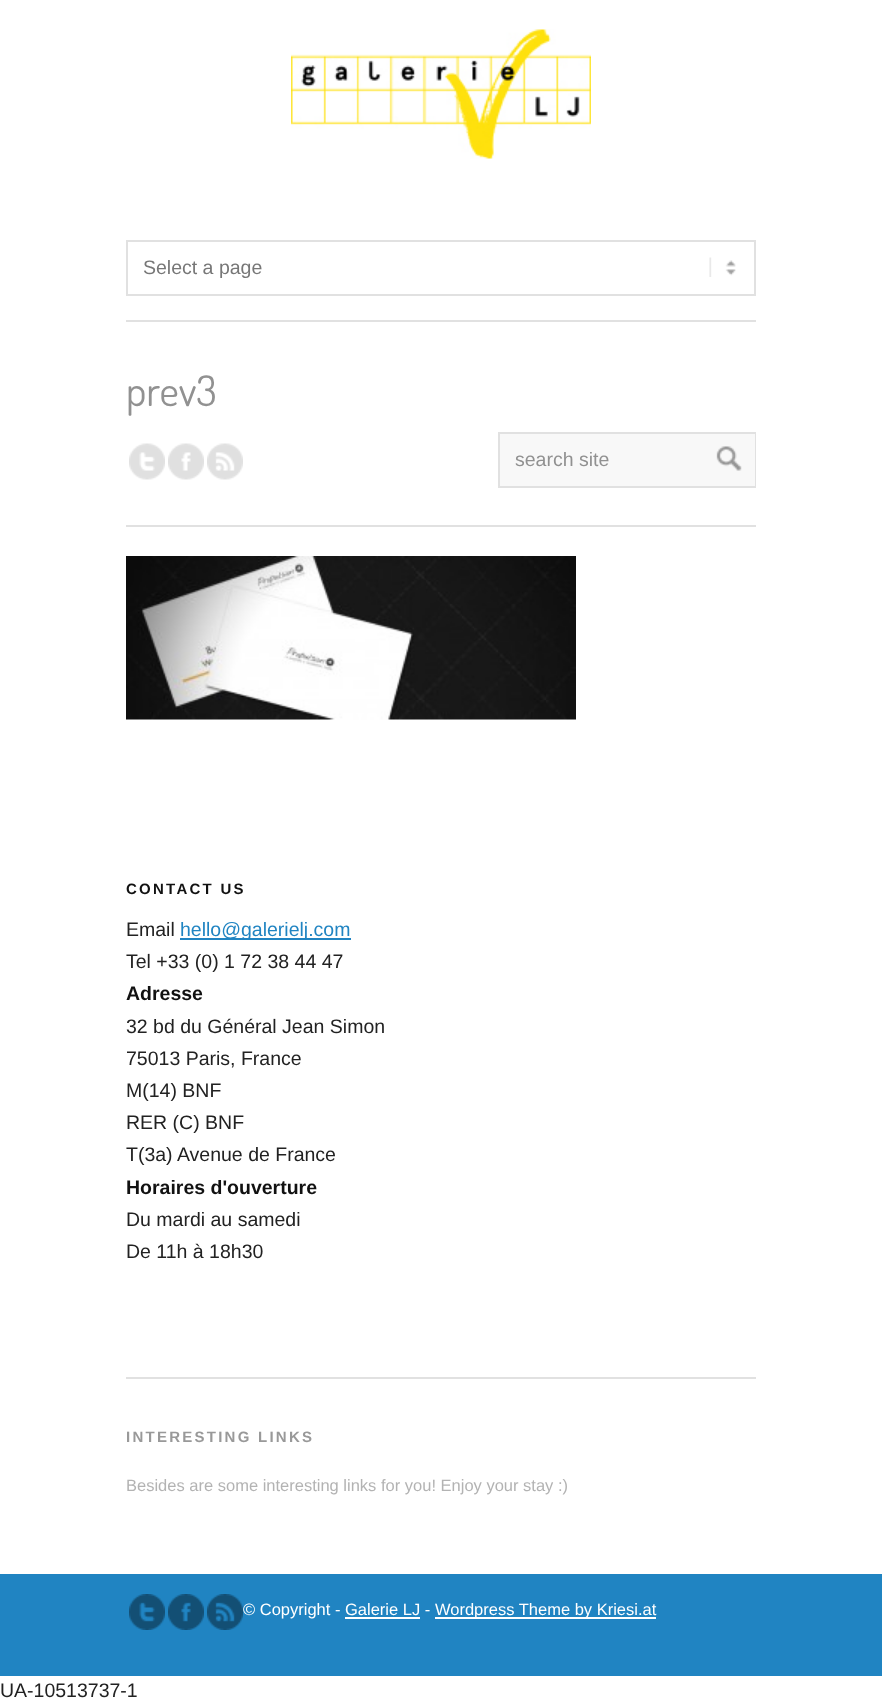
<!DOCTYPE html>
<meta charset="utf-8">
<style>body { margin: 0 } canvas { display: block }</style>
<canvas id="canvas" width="882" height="1700"></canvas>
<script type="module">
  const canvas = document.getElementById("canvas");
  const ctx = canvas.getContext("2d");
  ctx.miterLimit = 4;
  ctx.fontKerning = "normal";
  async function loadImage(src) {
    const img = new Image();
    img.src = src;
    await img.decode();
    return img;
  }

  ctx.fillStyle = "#ffffff";
  ctx.fillRect(0, 0, 882, 1700);
  ctx.fillStyle = "#e1e1e1";
  ctx.fillRect(126, 320, 630, 2);
  ctx.drawImage(await loadImage("img1.png"), 291, 29, 300, 130);
  ctx.drawImage(await loadImage("img2.png"), 709, 257, 27, 20);
  ctx.strokeStyle = "#e1e1e1";
  ctx.lineWidth = 2;
  ctx.strokeRect(127, 241, 628, 54);
  ctx.font = "19.5px Liberation Sans";
  ctx.fillStyle = "#777777";
  ctx.fillText("Select a page", 143, 274);
  ctx.fillStyle = "#e1e1e1";
  ctx.fillRect(126, 525, 630, 2);
  ctx.font = "42px Dosis";
  ctx.fillStyle = "#919191";
  ctx.fillText("prev3", 126, 406);
  ctx.drawImage(await loadImage("img3.png"), 129, 443, 36, 37);
  ctx.drawImage(await loadImage("img4.png"), 168, 443, 36, 37);
  ctx.drawImage(await loadImage("img5.png"), 207, 443, 36, 37);
  ctx.fillStyle = "#f8f8f8";
  ctx.fillRect(500, 434, 202, 52);
  ctx.strokeRect(499, 433, 256, 54);
  ctx.font = "19.5px Liberation Sans";
  ctx.fillStyle = "#919191";
  ctx.fillText("search site", 515, 466);
  ctx.fillStyle = "#f8f8f8";
  ctx.fillRect(702, 434, 53, 52);
  ctx.drawImage(await loadImage("img6.png"), 716, 446, 26, 25);
  ctx.drawImage(await loadImage("img7.png"), 126, 556, 450, 164);
  ctx.letterSpacing = "2.25px";
  ctx.font = "bold 15px Liberation Sans";
  ctx.fillStyle = "#111111";
  ctx.fillText("CONTACT US", 126, 894);
  ctx.letterSpacing = "0px";
  ctx.font = "19.5px Liberation Sans";
  ctx.fillStyle = "#222222";
  ctx.fillText("Email", 126, 936);
  ctx.fillStyle = "#2084c2";
  ctx.fillRect(180, 938, 171, 2);
  ctx.fillText("hello@galerielj.com", 180, 936);
  ctx.fillStyle = "#222222";
  ctx.fillText("Tel +33 (0) 1 72 38 44 47", 126, 968);
  ctx.font = "bold 19.5px Liberation Sans";
  ctx.fillStyle = "#111111";
  ctx.fillText("Adresse", 126, 1000);
  ctx.font = "19.5px Liberation Sans";
  ctx.fillStyle = "#222222";
  ctx.fillText("32 bd du Général Jean Simon", 126, 1033);
  ctx.fillText("75013 Paris, France", 126, 1065);
  ctx.fillText("M(14) BNF", 126, 1097);
  ctx.fillText("RER (C) BNF", 126, 1129);
  ctx.fillText("T(3a) Avenue de France", 126, 1161);
  ctx.font = "bold 19.5px Liberation Sans";
  ctx.fillStyle = "#111111";
  ctx.fillText("Horaires d'ouverture", 126, 1194);
  ctx.font = "19.5px Liberation Sans";
  ctx.fillStyle = "#222222";
  ctx.fillText("Du mardi au samedi", 126, 1226);
  ctx.fillText("De 11h à 18h30", 126, 1258);
  ctx.fillStyle = "#e1e1e1";
  ctx.fillRect(126, 1377, 630, 2);
  ctx.letterSpacing = "2.25px";
  ctx.font = "bold 15px Liberation Sans";
  ctx.fillStyle = "#999999";
  ctx.fillText("INTERESTING LINKS", 126, 1442);
  ctx.letterSpacing = "0px";
  ctx.font = "16.5px Liberation Sans";
  ctx.fillStyle = "#b3b3b3";
  ctx.fillText("Besides are some interesting links for you! Enjoy your stay :)", 126, 1491);
  ctx.fillStyle = "#2084c2";
  ctx.fillRect(0, 1574, 882, 102);
  ctx.drawImage(await loadImage("img8.png"), 129, 1594, 36, 36);
  ctx.drawImage(await loadImage("img9.png"), 168, 1594, 36, 36);
  ctx.drawImage(await loadImage("img10.png"), 207, 1594, 36, 36);
  ctx.fillStyle = "#ffffff";
  ctx.fillText("© Copyright - Galerie LJ -", 243, 1615);
  ctx.fillRect(345, 1617, 75, 2);
  ctx.fillRect(435, 1617, 221, 2);
  ctx.fillText("Wordpress Theme by Kriesi.at", 435, 1615);
  ctx.font = "19.5px Liberation Sans";
  ctx.fillStyle = "#222222";
  ctx.fillText("UA-10513737-1", 0, 1697);
</script>
